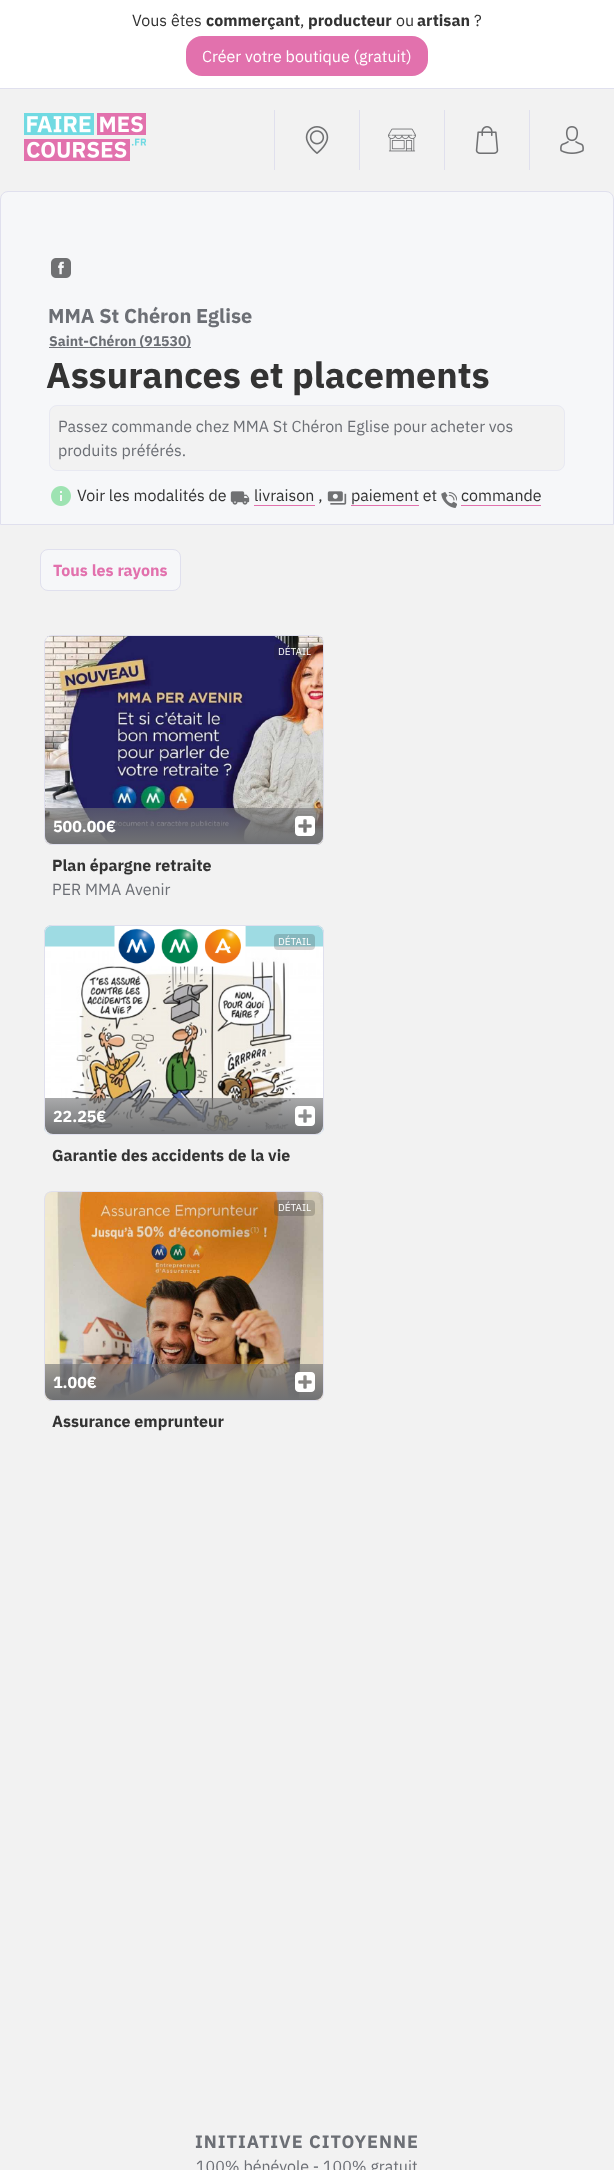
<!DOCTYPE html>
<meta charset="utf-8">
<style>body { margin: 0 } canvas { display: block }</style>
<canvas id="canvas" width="614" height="2170"></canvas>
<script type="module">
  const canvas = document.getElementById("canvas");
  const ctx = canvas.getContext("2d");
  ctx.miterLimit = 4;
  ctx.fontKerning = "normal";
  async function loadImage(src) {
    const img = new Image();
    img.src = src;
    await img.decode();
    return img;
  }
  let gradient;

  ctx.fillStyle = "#f2f2f2";
  ctx.fillRect(0, 0, 614, 2170);
  ctx.fillStyle = "#ffffff";
  ctx.fillRect(0, 0, 614, 88);
  ctx.fillStyle = "#e0e0ee";
  ctx.fillRect(0, 88, 614, 1);
  ctx.font = "16px IBM Plex Sans";
  ctx.fillStyle = "#333333";
  ctx.fillText("Vous êtes", 132, 26);
  ctx.font = "bold 16px IBM Plex Sans";
  ctx.fillText("commerçant", 206, 26);
  ctx.font = "16px IBM Plex Sans";
  ctx.fillText(",", 300, 26);
  ctx.font = "bold 16px IBM Plex Sans";
  ctx.fillText("producteur", 308, 26);
  ctx.font = "16px IBM Plex Sans";
  ctx.fillText("ou", 396, 26);
  ctx.font = "bold 16px IBM Plex Sans";
  ctx.fillText("artisan", 417, 26);
  ctx.font = "16px IBM Plex Sans";
  ctx.fillText("?", 474, 26);
  ctx.fillStyle = "#e271ad";
  ctx.beginPath();
  ctx.roundRect(186, 36, 242, 40, 16);
  ctx.fill();
  ctx.fillStyle = "#ffffff";
  ctx.fillText("Créer votre boutique (gratuit)", 202, 62);
  ctx.drawImage(await loadImage("img1.png"), 24, 113, 122, 48);
  ctx.fillStyle = "#e0e0ee";
  ctx.fillRect(274, 110, 1, 60);
  ctx.drawImage(await loadImage("img2.png"), 305, 126, 24, 28);
  ctx.fillRect(359, 110, 1, 60);
  ctx.drawImage(await loadImage("img3.png"), 388, 128, 28, 24);
  ctx.fillRect(444, 110, 1, 60);
  ctx.drawImage(await loadImage("img4.png"), 475, 126, 24, 28);
  ctx.fillRect(529, 110, 1, 60);
  ctx.drawImage(await loadImage("img5.png"), 560, 126, 24, 28);
  ctx.fillStyle = "#f6f7f9";
  ctx.beginPath();
  ctx.roundRect(0.5, 191.5, 613, 333, [7.5, 7.5, 0, 0]);
  ctx.fill();
  ctx.strokeStyle = "#e0e0ee";
  ctx.stroke();
  ctx.drawImage(await loadImage("img6.png"), 51, 258, 20, 20);
  ctx.font = "bold 20px IBM Plex Sans";
  ctx.fillStyle = "#6c6f75";
  ctx.fillText("MMA St Chéron Eglise", 48, 323);
  ctx.fillRect(49, 347, 142, 1);
  ctx.font = "bold 14px IBM Plex Sans";
  ctx.fillText("Saint-Chéron (91530)", 49, 346);
  ctx.font = "bold 36px IBM Plex Sans";
  ctx.fillStyle = "#333333";
  ctx.fillText("Assurances et placements", 46, 388);
  ctx.fillStyle = "#f2f2f2";
  ctx.beginPath();
  ctx.roundRect(49.5, 405.5, 515, 65, 7.5);
  ctx.fill();
  ctx.strokeStyle = "#e8e9f2";
  ctx.stroke();
  ctx.font = "16px IBM Plex Sans";
  ctx.fillStyle = "#6c6f75";
  ctx.fillText("Passez commande chez MMA St Chéron Eglise pour acheter vos", 58, 432);
  ctx.fillText("produits préférés.", 58, 456);
  ctx.drawImage(await loadImage("img7.png"), 51, 486, 20, 20);
  ctx.fillStyle = "#333333";
  ctx.fillText("Voir les modalités de", 77, 501);
  ctx.drawImage(await loadImage("img8.png"), 230, 491, 20, 14);
  ctx.fillText("livraison ,", 254, 501);
  ctx.fillStyle = "#e271ad";
  ctx.fillRect(254, 505, 61, 1);
  ctx.drawImage(await loadImage("img9.png"), 327, 491, 20, 14);
  ctx.fillStyle = "#333333";
  ctx.fillText("paiement et", 351, 501);
  ctx.fillStyle = "#e271ad";
  ctx.fillRect(351, 505, 68, 1);
  ctx.drawImage(await loadImage("img10.png"), 441, 492, 16, 16);
  ctx.fillStyle = "#333333";
  ctx.fillText("commande", 461, 501);
  ctx.fillStyle = "#e271ad";
  ctx.fillRect(461, 505, 80, 1);
  ctx.fillStyle = "#f6f7f9";
  ctx.beginPath();
  ctx.roundRect(40.5, 549.5, 140, 41, 7.5);
  ctx.fill();
  ctx.strokeStyle = "#e0e0ee";
  ctx.stroke();
  ctx.font = "bold 16px IBM Plex Sans";
  ctx.fillStyle = "#e271ad";
  ctx.fillText("Tous les rayons", 53, 576);
  ctx.drawImage(await loadImage("img11.png"), 45, 636, 278, 209);
  ctx.beginPath();
  ctx.roundRect(44.5, 635.5, 279, 209, 7.5);
  ctx.stroke();
  ctx.fillStyle = "rgba(33, 33, 33, 0.2)";
  ctx.beginPath();
  ctx.roundRect(274, 644, 41, 16, 4);
  ctx.fill();
  ctx.font = "10px IBM Plex Sans";
  ctx.fillStyle = "#ffffff";
  ctx.fillText("DÉTAIL", 278, 655);
  gradient = ctx.createLinearGradient(184, 808, 184, 844);
  gradient.addColorStop(0, "rgba(112, 113, 115, 0.6)");
  gradient.addColorStop(1, "#707173");
  ctx.fillStyle = gradient;
  ctx.beginPath();
  ctx.roundRect(45, 808, 278, 36, [0, 0, 8, 8]);
  ctx.fill();
  ctx.font = "bold 16px IBM Plex Sans";
  ctx.fillStyle = "#ffffff";
  ctx.fillText("500.00€", 53, 832);
  ctx.drawImage(await loadImage("img12.png"), 295, 816, 20, 20);
  ctx.fillStyle = "#333333";
  ctx.fillText("Plan épargne retraite", 52, 871);
  ctx.font = "16px IBM Plex Sans";
  ctx.fillStyle = "#6c6f75";
  ctx.fillText("PER MMA Avenir", 52, 895);
  ctx.fillStyle = "#9edbe3";
  ctx.beginPath();
  ctx.roundRect(44, 925, 280, 210, 8);
  ctx.fill();
  ctx.drawImage(await loadImage("img13.png"), 45, 926, 278, 209);
  ctx.beginPath();
  ctx.roundRect(44.5, 925.5, 279, 209, 7.5);
  ctx.stroke();
  ctx.fillStyle = "rgba(33, 33, 33, 0.2)";
  ctx.beginPath();
  ctx.roundRect(274, 934, 41, 16, 4);
  ctx.fill();
  ctx.font = "10px IBM Plex Sans";
  ctx.fillStyle = "#ffffff";
  ctx.fillText("DÉTAIL", 278, 945);
  gradient = ctx.createLinearGradient(184, 1098, 184, 1134);
  gradient.addColorStop(0, "rgba(112, 113, 115, 0.6)");
  gradient.addColorStop(1, "#707173");
  ctx.fillStyle = gradient;
  ctx.beginPath();
  ctx.roundRect(45, 1098, 278, 36, [0, 0, 8, 8]);
  ctx.fill();
  ctx.font = "bold 16px IBM Plex Sans";
  ctx.fillStyle = "#ffffff";
  ctx.fillText("22.25€", 53, 1122);
  ctx.drawImage(await loadImage("img14.png"), 295, 1106, 20, 20);
  ctx.fillStyle = "#333333";
  ctx.fillText("Garantie des accidents de la vie", 52, 1161);
  ctx.drawImage(await loadImage("img15.png"), 45, 1192, 278, 209);
  ctx.beginPath();
  ctx.roundRect(44.5, 1191.5, 279, 209, 7.5);
  ctx.stroke();
  ctx.fillStyle = "rgba(33, 33, 33, 0.2)";
  ctx.beginPath();
  ctx.roundRect(274, 1200, 41, 16, 4);
  ctx.fill();
  ctx.font = "10px IBM Plex Sans";
  ctx.fillStyle = "#ffffff";
  ctx.fillText("DÉTAIL", 278, 1211);
  gradient = ctx.createLinearGradient(184, 1364, 184, 1400);
  gradient.addColorStop(0, "rgba(112, 113, 115, 0.6)");
  gradient.addColorStop(1, "#707173");
  ctx.fillStyle = gradient;
  ctx.beginPath();
  ctx.roundRect(45, 1364, 278, 36, [0, 0, 8, 8]);
  ctx.fill();
  ctx.font = "bold 16px IBM Plex Sans";
  ctx.fillStyle = "#ffffff";
  ctx.fillText("1.00€", 53, 1388);
  ctx.drawImage(await loadImage("img16.png"), 295, 1372, 20, 20);
  ctx.fillStyle = "#333333";
  ctx.fillText("Assurance emprunteur", 52, 1427);
  ctx.letterSpacing = "1px";
  ctx.font = "bold 18px IBM Plex Sans";
  ctx.fillStyle = "#6c6f75";
  ctx.fillText("INITIATIVE CITOYENNE", 195, 2148);
  ctx.letterSpacing = "0px";
  ctx.font = "16px IBM Plex Sans";
  ctx.fillText("100% bénévole - 100% gratuit", 196, 2172);
</script>
